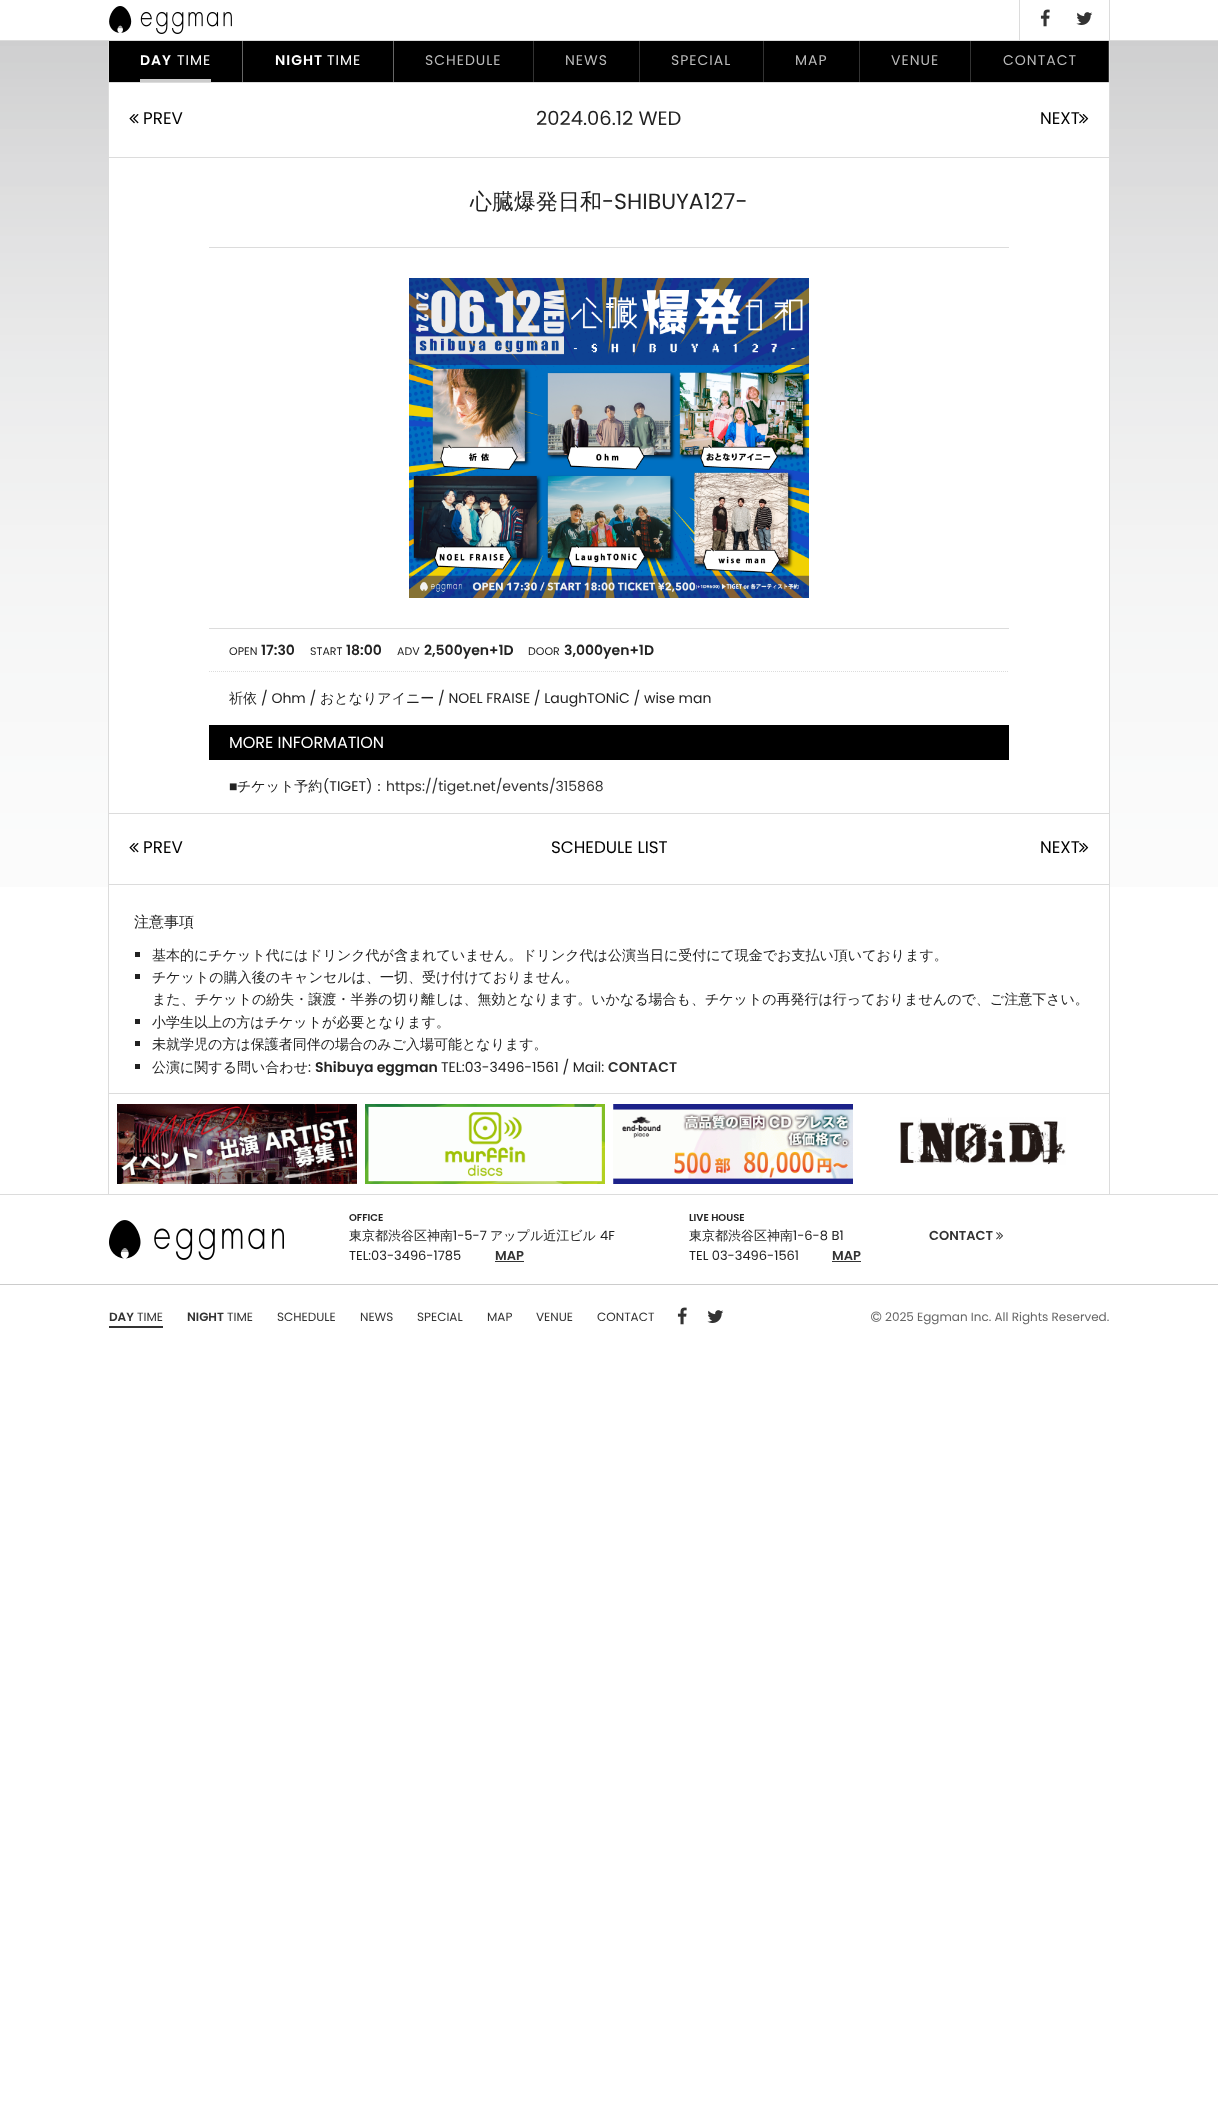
<!DOCTYPE html>
<meta charset="utf-8">
<style>body { margin: 0 } canvas { display: block }</style>
<canvas id="canvas" width="1218" height="2104"></canvas>
<script type="module">
  const canvas = document.getElementById("canvas");
  const ctx = canvas.getContext("2d");
  ctx.miterLimit = 4;
  ctx.fontKerning = "normal";
  async function loadImage(src) {
    const img = new Image();
    img.src = src;
    await img.decode();
    return img;
  }

  ctx.fillStyle = "#ffffff";
  ctx.fillRect(0, 0, 1218, 2104);
  ctx.drawImage(await loadImage("img1.png"), 0, 41, 1218, 846);
  ctx.fillStyle = "#dcdcdc";
  ctx.fillRect(0, 40, 1218, 1);
  ctx.drawImage(await loadImage("img2.png"), 109, 6, 123, 28);
  ctx.fillRect(1109, 0, 1, 40);
  ctx.fillRect(1019, 0, 1, 40);
  ctx.drawImage(await loadImage("img3.png"), 1040, 9, 10, 18);
  ctx.drawImage(await loadImage("img4.png"), 1076, 12, 17, 13);
  ctx.fillStyle = "#ffffff";
  ctx.fillRect(109, 83, 1000, 804);
  ctx.fillStyle = "#dcdcdc";
  ctx.fillRect(1109, 41, 1, 1153);
  ctx.fillRect(108, 41, 1, 1153);
  ctx.fillStyle = "#000000";
  ctx.fillRect(109, 41, 999, 41);
  ctx.fillStyle = "#dcdcdc";
  ctx.fillRect(109, 82, 1000, 1);
  ctx.fillStyle = "#666666";
  ctx.fillRect(242, 41, 1, 41);
  ctx.fillStyle = "#cccccc";
  ctx.fillRect(140, 79, 71, 3);
  ctx.letterSpacing = "1px";
  ctx.font = "600 14px Poppins";
  ctx.fillStyle = "#ffffff";
  ctx.fillText("DAY", 140, 65);
  ctx.font = "14px Poppins";
  ctx.fillText("TIME", 177, 65);
  ctx.fillStyle = "#666666";
  ctx.fillRect(393, 41, 1, 41);
  ctx.font = "600 14px Poppins";
  ctx.fillStyle = "#ffffff";
  ctx.fillText("NIGHT", 275, 65);
  ctx.font = "14px Poppins";
  ctx.fillText("TIME", 327, 65);
  ctx.fillStyle = "#333333";
  ctx.fillRect(533, 41, 1, 41);
  ctx.fillStyle = "#bbbbbb";
  ctx.fillText("SCHEDULE", 425, 65);
  ctx.fillStyle = "#333333";
  ctx.fillRect(639, 41, 1, 41);
  ctx.fillStyle = "#bbbbbb";
  ctx.fillText("NEWS", 565, 65);
  ctx.fillStyle = "#333333";
  ctx.fillRect(763, 41, 1, 41);
  ctx.fillStyle = "#bbbbbb";
  ctx.fillText("SPECIAL", 671, 65);
  ctx.fillStyle = "#333333";
  ctx.fillRect(859, 41, 1, 41);
  ctx.fillStyle = "#bbbbbb";
  ctx.fillText("MAP", 795, 65);
  ctx.fillStyle = "#333333";
  ctx.fillRect(970, 41, 1, 41);
  ctx.fillStyle = "#bbbbbb";
  ctx.fillText("VENUE", 891, 65);
  ctx.fillStyle = "#333333";
  ctx.fillRect(1108, 41, 1, 41);
  ctx.fillStyle = "#bbbbbb";
  ctx.fillText("CONTACT", 1003, 65);
  ctx.fillStyle = "#dcdcdc";
  ctx.fillRect(109, 157, 1000, 1);
  ctx.drawImage(await loadImage("img5.png"), 129, 114, 10, 10);
  ctx.letterSpacing = "0px";
  ctx.font = "16.75px Poppins";
  ctx.fillStyle = "#000000";
  ctx.fillText("PREV", 143, 124);
  ctx.font = "19.5px Poppins";
  ctx.fillStyle = "#222222";
  ctx.fillText("2024.06.12 WED", 536, 125);
  ctx.font = "16.75px Poppins";
  ctx.fillStyle = "#000000";
  ctx.fillText("NEXT", 1040, 124);
  ctx.drawImage(await loadImage("img6.png"), 1079, 114, 10, 10);
  ctx.fillStyle = "#dcdcdc";
  ctx.fillRect(109, 813, 1000, 1);
  ctx.fillRect(209, 247, 800, 1);
  ctx.font = "500 22px WenQuanYi Zen Hei";
  ctx.fillStyle = "#222222";
  ctx.fillText("心臓爆発日和", 470, 209);
  ctx.font = "22px Poppins";
  ctx.fillText("-SHIBUYA127-", 602, 209);
  ctx.fillStyle = "#dcdcdc";
  ctx.fillRect(209, 628, 800, 1);
  ctx.drawImage(await loadImage("img7.png"), 409, 278, 400, 320);
  ctx.beginPath();
  ctx.moveTo(209, 671.5);
  ctx.lineTo(1009, 671.5);
  ctx.strokeStyle = "#dcdcdc";
  ctx.setLineDash([1, 1]);
  ctx.stroke();
  ctx.font = "11px Poppins";
  ctx.fillStyle = "#222222";
  ctx.fillText("OPEN", 229, 655);
  ctx.font = "600 14px Poppins";
  ctx.fillText("17:30", 261, 655);
  ctx.font = "11px Poppins";
  ctx.fillText("START", 310, 655);
  ctx.font = "600 14px Poppins";
  ctx.fillText("18:00", 346, 655);
  ctx.font = "11px Poppins";
  ctx.fillText("ADV", 397, 655);
  ctx.font = "600 14px Poppins";
  ctx.fillText("2,500yen+1D", 424, 655);
  ctx.font = "11px Poppins";
  ctx.fillText("DOOR", 528, 655);
  ctx.font = "600 14px Poppins";
  ctx.fillText("3,000yen+1D", 564, 655);
  ctx.font = "500 14px WenQuanYi Zen Hei";
  ctx.fillText("祈依", 229, 703);
  ctx.font = "14px Poppins";
  ctx.fillText("/ Ohm /", 261, 703);
  ctx.font = "500 14px WenQuanYi Zen Hei";
  ctx.fillText("おとなりアイニー", 320, 703);
  ctx.font = "14px Poppins";
  ctx.fillText("/ NOEL FRAISE / LaughTONiC / wise man", 438, 703);
  ctx.fillStyle = "#000000";
  ctx.fillRect(209, 725, 800, 35);
  ctx.font = "16px Poppins";
  ctx.fillStyle = "#ffffff";
  ctx.fillText("MORE INFORMATION", 229, 748);
  ctx.font = "14px Liberation Sans";
  ctx.fillStyle = "#222222";
  ctx.fillText("■", 229, 791);
  ctx.font = "500 14px WenQuanYi Zen Hei";
  ctx.fillText("チケット予約", 237, 791);
  ctx.font = "14px Poppins";
  ctx.fillText("(TIGET)", 323, 791);
  ctx.font = "500 14px WenQuanYi Zen Hei";
  ctx.fillText("：", 372, 791);
  ctx.font = "14px Poppins";
  ctx.fillStyle = "#333333";
  ctx.fillText("https://tiget.net/events/315868", 386, 791);
  ctx.fillStyle = "#dcdcdc";
  ctx.fillRect(109, 884, 1000, 1);
  ctx.drawImage(await loadImage("img5.png"), 129, 843, 10, 10);
  ctx.font = "16.75px Poppins";
  ctx.fillStyle = "#000000";
  ctx.fillText("PREV", 143, 853);
  ctx.fillText("SCHEDULE LIST", 551, 853);
  ctx.fillText("NEXT", 1040, 853);
  ctx.drawImage(await loadImage("img6.png"), 1079, 843, 10, 10);
  ctx.fillStyle = "#dcdcdc";
  ctx.fillRect(109, 1093, 1000, 1);
  ctx.font = "500 15px WenQuanYi Zen Hei";
  ctx.fillStyle = "#222222";
  ctx.fillText("注意事項", 134, 927);
  ctx.fillRect(135, 952, 5, 5);
  ctx.font = "500 14px WenQuanYi Zen Hei";
  ctx.fillText("基本的にチケット代にはドリンク代が含まれていません。ドリンク代は公演当日に受付にて現金でお支払い頂いております。", 152, 960);
  ctx.fillRect(135, 974, 5, 5);
  ctx.fillText("チケットの購入後のキャンセルは、一切、受け付けておりません。", 152, 982);
  ctx.fillText("また、チケットの紛失・譲渡・半券の切り離しは、無効となります。いかなる場合も、チケットの再発行は行っておりませんので、ご注意下さい。", 152, 1004);
  ctx.fillRect(135, 1019, 5, 5);
  ctx.fillText("小学生以上の方はチケットが必要となります。", 152, 1027);
  ctx.fillRect(135, 1041, 5, 5);
  ctx.fillText("未就学児の方は保護者同伴の場合のみご入場可能となります。", 152, 1049);
  ctx.fillRect(135, 1064, 5, 5);
  ctx.fillText("公演に関する問い合わせ", 152, 1072);
  ctx.font = "14px Poppins";
  ctx.fillText(":", 308, 1072);
  ctx.font = "600 14px Poppins";
  ctx.fillText("Shibuya eggman", 315, 1072);
  ctx.font = "14px Poppins";
  ctx.fillText("TEL:03-3496-1561 / Mail:", 441, 1072);
  ctx.font = "600 14px Poppins";
  ctx.fillStyle = "#333333";
  ctx.fillText("CONTACT", 608, 1072);
  ctx.drawImage(await loadImage("img8.png"), 117, 1104, 240, 80);
  ctx.drawImage(await loadImage("img9.png"), 365, 1104, 240, 80);
  ctx.drawImage(await loadImage("img10.png"), 613, 1104, 240, 80);
  ctx.drawImage(await loadImage("img11.png"), 900, 1117, 166, 48);
  ctx.fillStyle = "#dcdcdc";
  ctx.fillRect(0, 1194, 1218, 1);
  ctx.drawImage(await loadImage("img12.png"), 109, 1220, 175, 40);
  ctx.font = "600 10px Poppins";
  ctx.fillStyle = "#222222";
  ctx.fillText("OFFICE", 349, 1221);
  ctx.font = "500 13px WenQuanYi Zen Hei";
  ctx.fillText("東京都渋谷区神南", 349, 1240);
  ctx.font = "13px Poppins";
  ctx.fillText("1-5-7", 453, 1240);
  ctx.font = "500 13px WenQuanYi Zen Hei";
  ctx.fillText("アップル近江ビル", 490, 1240);
  ctx.font = "13px Poppins";
  ctx.fillText("4F", 600, 1240);
  ctx.fillText("TEL:03-3496-1785", 349, 1260);
  ctx.font = "600 13px Poppins";
  ctx.fillStyle = "#333333";
  ctx.fillText("MAP", 495, 1260);
  ctx.fillRect(495, 1261, 29, 1);
  ctx.font = "600 10px Poppins";
  ctx.fillStyle = "#222222";
  ctx.fillText("LIVE HOUSE", 689, 1221);
  ctx.font = "500 13px WenQuanYi Zen Hei";
  ctx.fillText("東京都渋谷区神南", 689, 1240);
  ctx.font = "13px Poppins";
  ctx.fillText("1-6-8 B1", 793, 1240);
  ctx.fillText("TEL 03-3496-1561", 689, 1260);
  ctx.font = "600 13px Poppins";
  ctx.fillStyle = "#333333";
  ctx.fillText("MAP", 832, 1260);
  ctx.fillRect(832, 1261, 29, 1);
  ctx.fillText("CONTACT", 929, 1240);
  ctx.drawImage(await loadImage("img13.png"), 996, 1232, 8, 8);
  ctx.fillStyle = "#cccccc";
  ctx.fillRect(0, 1284, 1218, 1);
  ctx.fillStyle = "#333333";
  ctx.fillRect(109, 1326, 54, 2);
  ctx.font = "600 12px Poppins";
  ctx.fillText("DAY", 109, 1321);
  ctx.font = "12px Poppins";
  ctx.fillText("TIME", 137, 1321);
  ctx.font = "600 12px Poppins";
  ctx.fillText("NIGHT", 187, 1321);
  ctx.font = "12px Poppins";
  ctx.fillText("TIME", 227, 1321);
  ctx.fillText("SCHEDULE", 277, 1321);
  ctx.fillText("NEWS", 360, 1321);
  ctx.fillText("SPECIAL", 417, 1321);
  ctx.fillText("MAP", 487, 1321);
  ctx.fillText("VENUE", 536, 1321);
  ctx.fillText("CONTACT", 597, 1321);
  ctx.drawImage(await loadImage("img3.png"), 677, 1307, 10, 18);
  ctx.drawImage(await loadImage("img4.png"), 707, 1310, 17, 13);
  ctx.drawImage(await loadImage("img14.png"), 871, 1311, 11, 11);
  ctx.fillStyle = "#666666";
  ctx.fillText("2025 Eggman Inc. All Rights Reserved.", 885, 1321);
</script>
